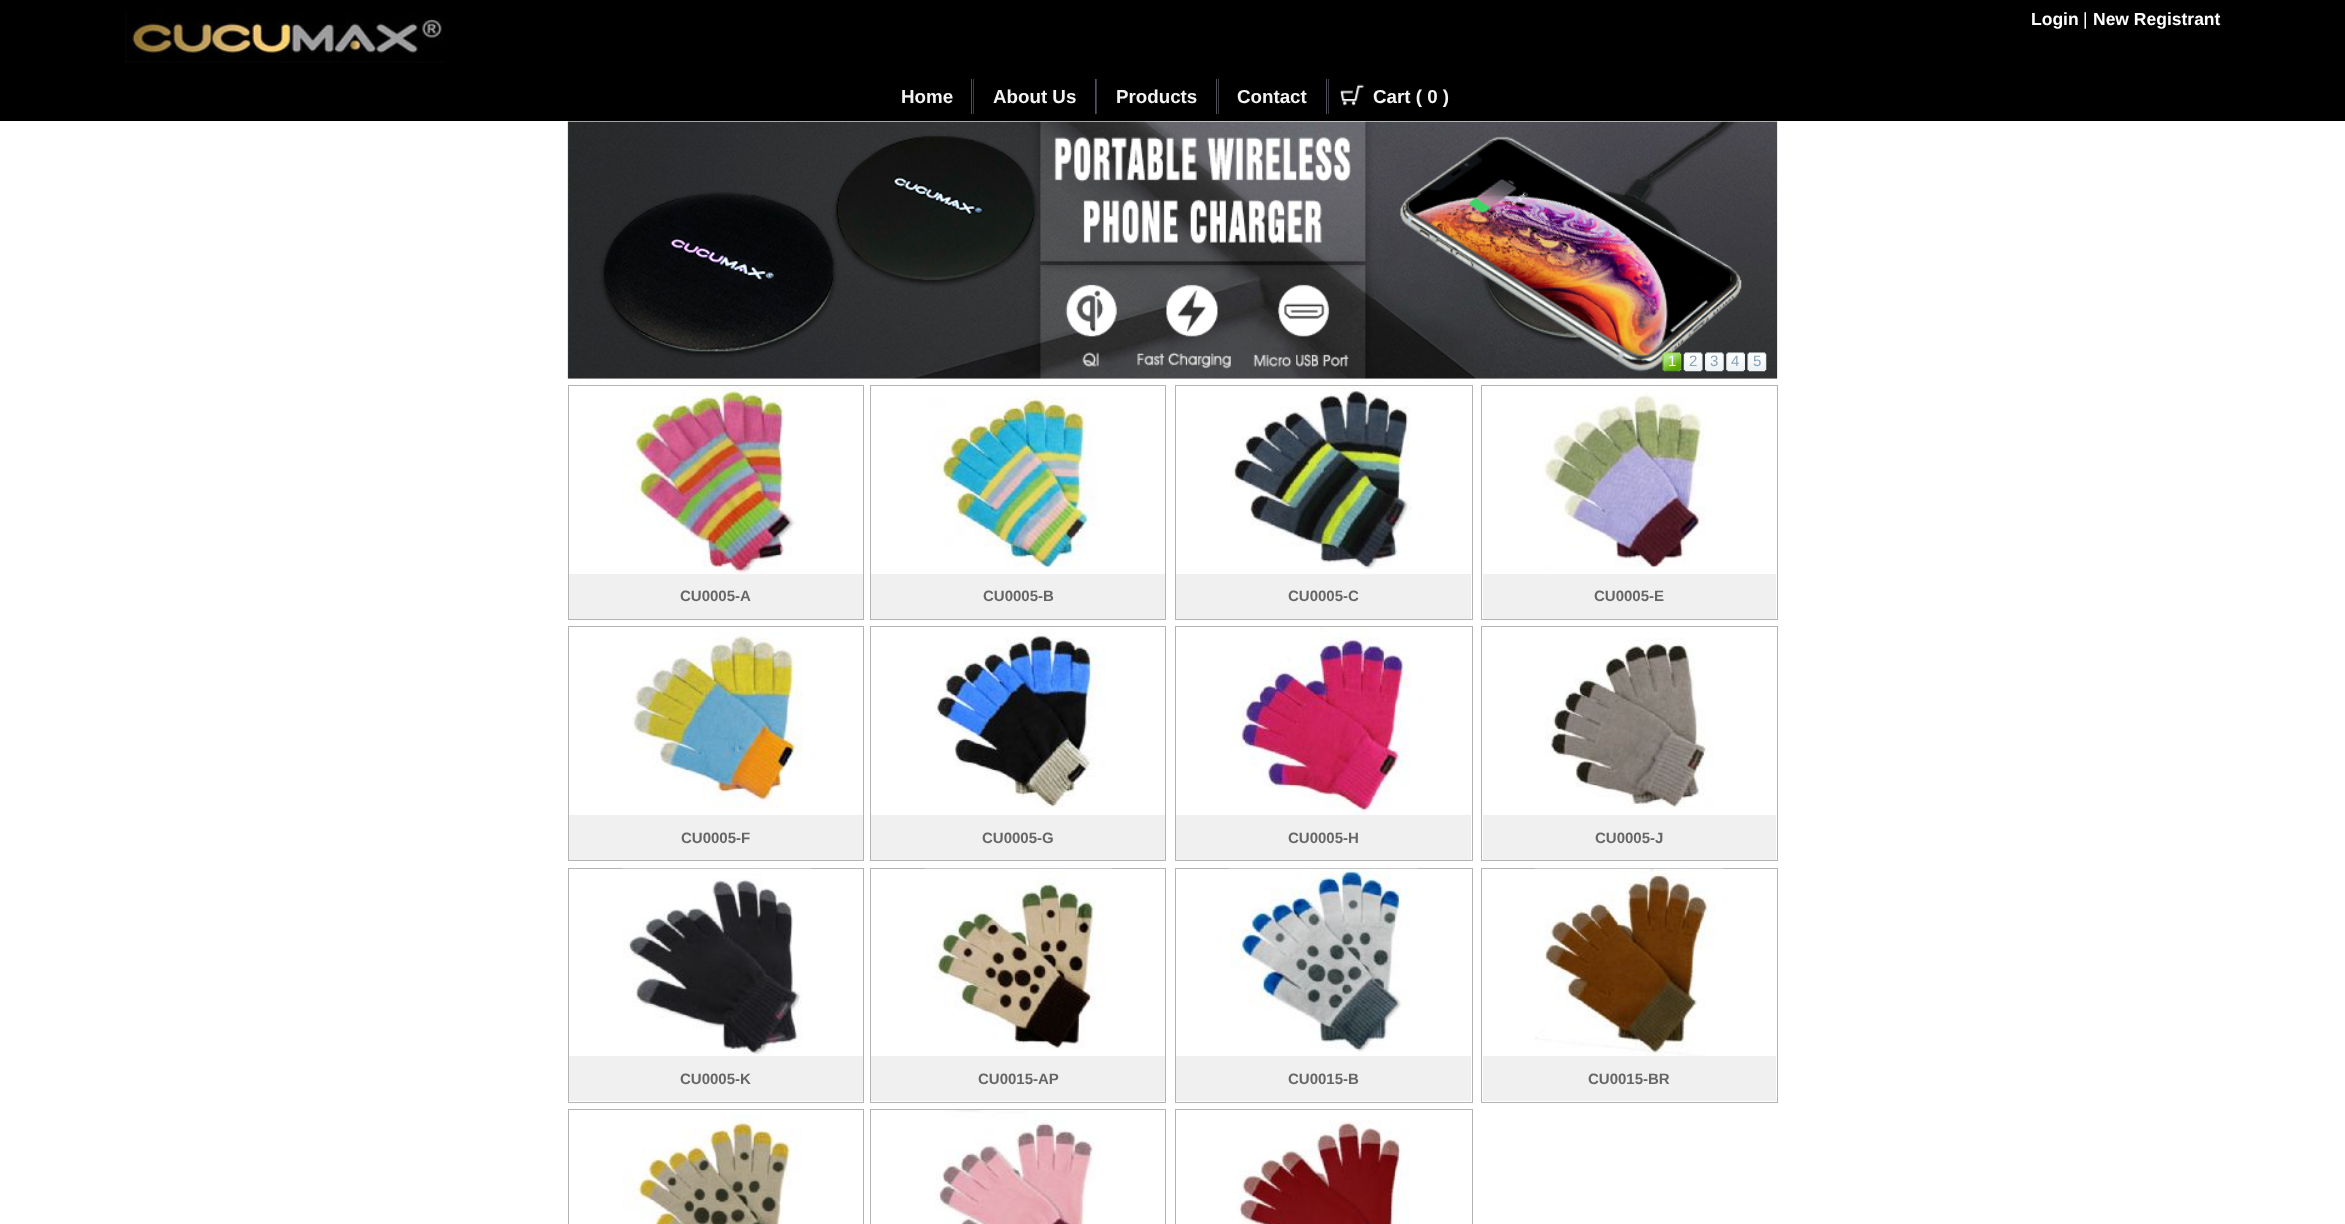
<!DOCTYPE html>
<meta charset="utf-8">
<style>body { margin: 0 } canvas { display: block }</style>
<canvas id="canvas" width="2345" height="1224"></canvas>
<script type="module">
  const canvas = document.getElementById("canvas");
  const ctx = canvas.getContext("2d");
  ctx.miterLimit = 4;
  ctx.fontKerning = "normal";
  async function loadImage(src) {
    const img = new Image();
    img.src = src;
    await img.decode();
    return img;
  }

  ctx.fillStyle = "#ffffff";
  ctx.fillRect(0, 0, 2345, 1224);
  ctx.fillStyle = "#000000";
  ctx.fillRect(0, 0, 2345, 121);
  ctx.drawImage(await loadImage("img1.png"), 125, 11, 319, 52);
  ctx.font = "bold 17.5px Liberation Sans";
  ctx.fillStyle = "#ffffff";
  ctx.fillText("Login", 2031, 25);
  ctx.font = "17.5px Liberation Sans";
  ctx.fillText("|", 2083, 25);
  ctx.font = "bold 17.5px Liberation Sans";
  ctx.fillText("New Registrant", 2093, 25);
  ctx.fillStyle = "#4f5058";
  ctx.fillRect(971, 79, 1, 35);
  ctx.font = "bold 18.75px Liberation Sans";
  ctx.fillStyle = "#f3f3f3";
  ctx.fillText("Home", 901, 103);
  ctx.fillStyle = "#4f5058";
  ctx.fillRect(1095, 79, 1, 35);
  ctx.fillStyle = "#393942";
  ctx.fillRect(973, 79, 1, 35);
  ctx.fillStyle = "#f3f3f3";
  ctx.fillText("About Us", 993, 103);
  ctx.fillStyle = "#4f5058";
  ctx.fillRect(1216, 79, 1, 35);
  ctx.fillStyle = "#393942";
  ctx.fillRect(1096, 79, 1, 35);
  ctx.fillStyle = "#f3f3f3";
  ctx.fillText("Products", 1116, 103);
  ctx.fillStyle = "#4f5058";
  ctx.fillRect(1326, 79, 1, 35);
  ctx.fillStyle = "#393942";
  ctx.fillRect(1218, 79, 1, 35);
  ctx.fillStyle = "#f3f3f3";
  ctx.fillText("Contact", 1237, 103);
  ctx.drawImage(await loadImage("img2.png"), 1340, 84, 24, 22);
  ctx.fillStyle = "#393942";
  ctx.fillRect(1328, 79, 1, 35);
  ctx.fillStyle = "#f3f3f3";
  ctx.fillText("Cart ( 0 )", 1373, 103);
  ctx.drawImage(await loadImage("img3.png"), 567, 121, 1211, 258);
  ctx.drawImage(await loadImage("img4.png"), 1662, 352, 20, 20);
  ctx.font = "15px Liberation Sans";
  ctx.fillStyle = "#ffffff";
  ctx.fillText("1", 1668, 366);
  ctx.drawImage(await loadImage("img5.png"), 1683, 352, 20, 20);
  ctx.fillStyle = "#86a2b8";
  ctx.fillText("2", 1689, 366);
  ctx.drawImage(await loadImage("img6.png"), 1705, 352, 19, 20);
  ctx.fillText("3", 1710, 366);
  ctx.drawImage(await loadImage("img7.png"), 1726, 352, 19, 20);
  ctx.fillText("4", 1731, 366);
  ctx.drawImage(await loadImage("img8.png"), 1747, 352, 20, 20);
  ctx.fillText("5", 1753, 366);
  ctx.strokeStyle = "#b4b4b4";
  ctx.strokeRect(568.5, 385.5, 295, 234);
  ctx.drawImage(await loadImage("img9.png"), 622, 386, 177, 188);
  ctx.fillStyle = "#f0f0f0";
  ctx.fillRect(569, 574, 294, 45);
  ctx.font = "bold 15px Liberation Sans";
  ctx.fillStyle = "#666666";
  ctx.fillText("CU0005-A", 680, 601);
  ctx.strokeRect(870.5, 385.5, 295, 234);
  ctx.drawImage(await loadImage("img10.png"), 929, 391, 170, 178);
  ctx.fillStyle = "#f0f0f0";
  ctx.fillRect(871, 574, 294, 45);
  ctx.fillStyle = "#666666";
  ctx.fillText("CU0005-B", 983, 601);
  ctx.strokeRect(1175.5, 385.5, 297, 234);
  ctx.drawImage(await loadImage("img11.png"), 1230, 386, 182, 183);
  ctx.fillStyle = "#f0f0f0";
  ctx.fillRect(1176, 574, 295, 45);
  ctx.fillStyle = "#666666";
  ctx.fillText("CU0005-C", 1288, 601);
  ctx.strokeRect(1481.5, 385.5, 296, 234);
  ctx.drawImage(await loadImage("img12.png"), 1541, 387, 171, 182);
  ctx.fillStyle = "#f0f0f0";
  ctx.fillRect(1483, 574, 293, 45);
  ctx.fillStyle = "#666666";
  ctx.fillText("CU0005-E", 1594, 601);
  ctx.strokeRect(568.5, 626.5, 295, 234);
  ctx.drawImage(await loadImage("img13.png"), 631, 628, 173, 180);
  ctx.fillStyle = "#f0f0f0";
  ctx.fillRect(569, 815, 294, 45);
  ctx.fillStyle = "#666666";
  ctx.fillText("CU0005-F", 681, 843);
  ctx.strokeRect(870.5, 626.5, 295, 234);
  ctx.drawImage(await loadImage("img14.png"), 935, 629, 171, 179);
  ctx.fillStyle = "#f0f0f0";
  ctx.fillRect(871, 815, 294, 45);
  ctx.fillStyle = "#666666";
  ctx.fillText("CU0005-G", 982, 843);
  ctx.strokeRect(1175.5, 626.5, 297, 234);
  ctx.drawImage(await loadImage("img15.png"), 1230, 627, 181, 188);
  ctx.fillStyle = "#f0f0f0";
  ctx.fillRect(1176, 815, 295, 45);
  ctx.fillStyle = "#666666";
  ctx.fillText("CU0005-H", 1288, 843);
  ctx.strokeRect(1481.5, 626.5, 296, 234);
  ctx.drawImage(await loadImage("img16.png"), 1545, 637, 170, 171);
  ctx.fillStyle = "#f0f0f0";
  ctx.fillRect(1483, 815, 293, 45);
  ctx.fillStyle = "#666666";
  ctx.fillText("CU0005-J", 1595, 843);
  ctx.strokeRect(568.5, 868.5, 295, 234);
  ctx.drawImage(await loadImage("img17.png"), 622, 868, 188, 188);
  ctx.fillStyle = "#f0f0f0";
  ctx.fillRect(569, 1056, 294, 45);
  ctx.fillStyle = "#666666";
  ctx.fillText("CU0005-K", 680, 1084);
  ctx.strokeRect(870.5, 868.5, 295, 234);
  ctx.drawImage(await loadImage("img18.png"), 925, 868, 188, 181);
  ctx.fillStyle = "#f0f0f0";
  ctx.fillRect(871, 1056, 294, 45);
  ctx.fillStyle = "#666666";
  ctx.fillText("CU0015-AP", 978, 1084);
  ctx.strokeRect(1175.5, 868.5, 297, 234);
  ctx.drawImage(await loadImage("img19.png"), 1230, 868, 188, 184);
  ctx.fillStyle = "#f0f0f0";
  ctx.fillRect(1176, 1056, 295, 45);
  ctx.fillStyle = "#666666";
  ctx.fillText("CU0015-B", 1288, 1084);
  ctx.strokeRect(1481.5, 868.5, 296, 234);
  ctx.drawImage(await loadImage("img20.png"), 1535, 868, 188, 188);
  ctx.fillStyle = "#f0f0f0";
  ctx.fillRect(1483, 1056, 293, 45);
  ctx.fillStyle = "#666666";
  ctx.fillText("CU0015-BR", 1588, 1084);
  ctx.strokeRect(568.5, 1109.5, 295, 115);
  ctx.drawImage(await loadImage("img21.png"), 623, 1114, 179, 110);
  ctx.strokeRect(870.5, 1109.5, 295, 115);
  ctx.drawImage(await loadImage("img22.png"), 935, 1110, 161, 114);
  ctx.strokeRect(1175.5, 1109.5, 297, 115);
  ctx.drawImage(await loadImage("img23.png"), 1237, 1119, 173, 105);
</script>
